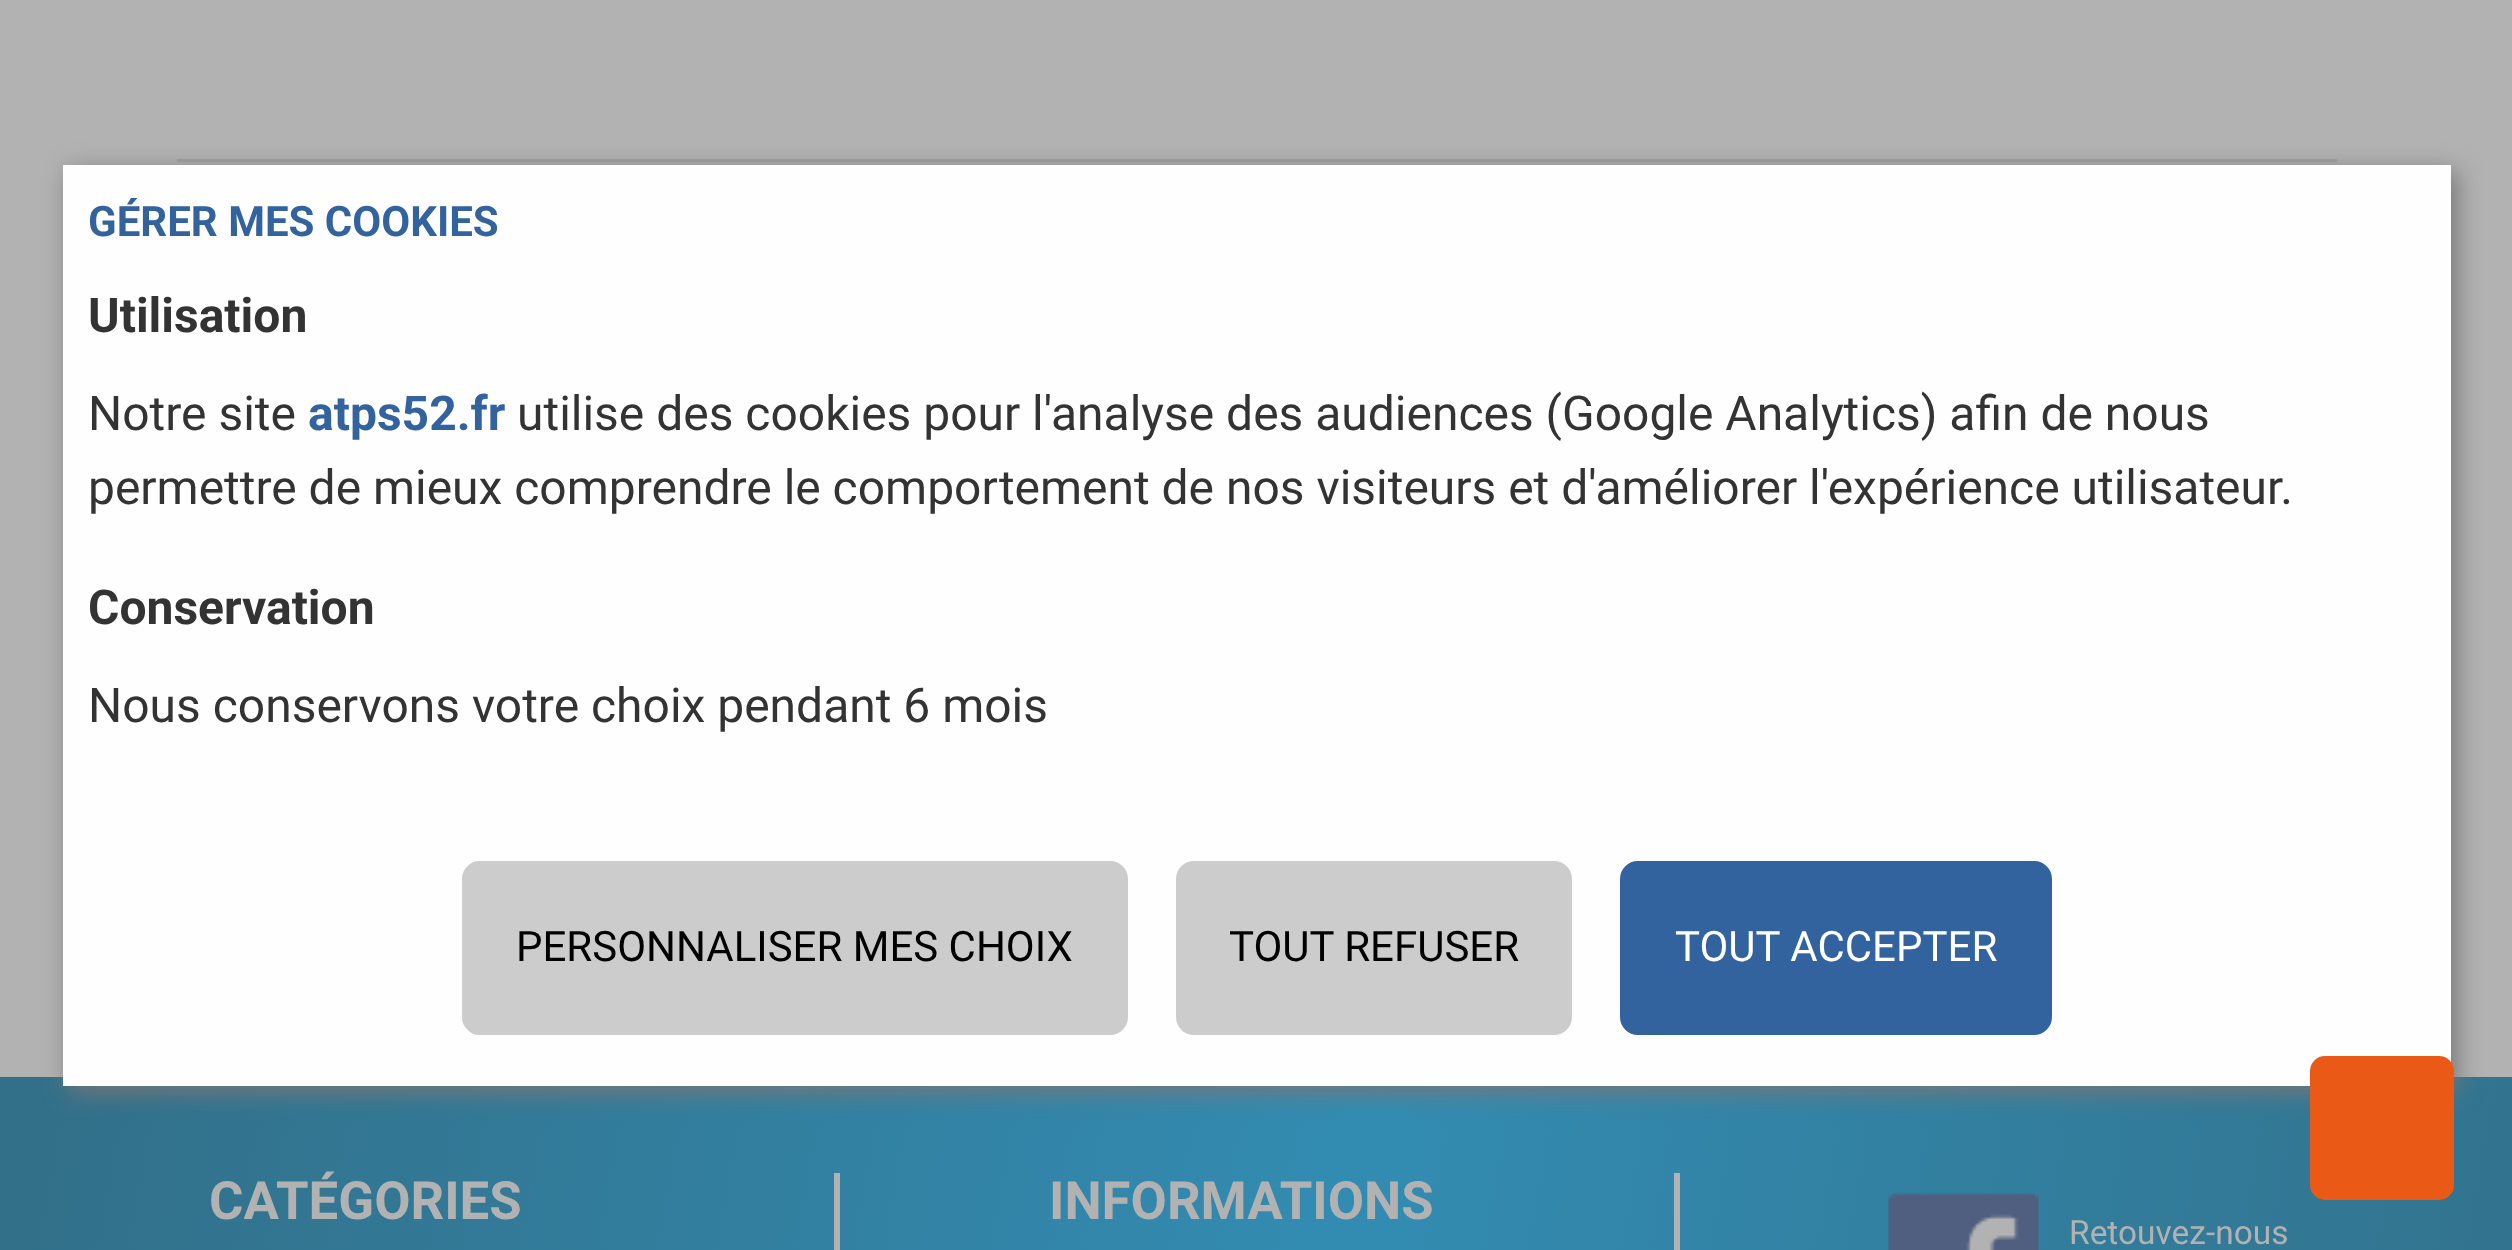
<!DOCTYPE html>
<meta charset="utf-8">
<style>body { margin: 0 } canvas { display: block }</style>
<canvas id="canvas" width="2512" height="1250"></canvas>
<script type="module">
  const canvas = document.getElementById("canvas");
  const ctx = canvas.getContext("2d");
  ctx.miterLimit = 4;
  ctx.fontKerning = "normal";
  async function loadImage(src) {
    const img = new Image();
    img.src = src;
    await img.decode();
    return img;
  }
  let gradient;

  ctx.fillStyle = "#b2b2b2";
  ctx.fillRect(0, 0, 2512, 1250);
  ctx.fillStyle = "#a1a1a1";
  ctx.fillRect(177, 159, 2160, 3);
  gradient = ctx.createLinearGradient(-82, 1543, 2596, 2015);
  gradient.addColorStop(0, "#326f88");
  gradient.addColorStop(0.5, "#328cb2");
  gradient.addColorStop(1, "#326f88");
  ctx.fillStyle = gradient;
  ctx.fillRect(0, 1077, 2512, 173);
  ctx.fillStyle = "#777777";
  ctx.filter = "blur(12px)";
  ctx.beginPath();
  ctx.rect(69, 171, 2388, 921);
  ctx.fill();
  ctx.filter = "none";
  ctx.fillStyle = "#fefefe";
  ctx.fillRect(63, 165, 2388, 921);
  ctx.font = "bold 42px 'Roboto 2'";
  ctx.fillStyle = "#33639f";
  ctx.fillText("GÉRER MES COOKIES", 88, 236);
  ctx.font = "bold 48px 'Roboto 2'";
  ctx.fillStyle = "#333333";
  ctx.fillText("Utilisation", 88, 332);
  ctx.font = "48px Roboto";
  ctx.fillText("Notre site", 88, 430);
  ctx.font = "bold 48px 'Roboto 2'";
  ctx.fillStyle = "#33639f";
  ctx.fillText("atps52.fr", 308, 430);
  ctx.font = "48px Roboto";
  ctx.fillStyle = "#333333";
  ctx.fillText("utilise des cookies pour l'analyse des audiences (Google Analytics) afin de nous", 517, 430);
  ctx.fillText("permettre de mieux comprendre le comportement de nos visiteurs et d'améliorer l'expérience utilisateur.", 88, 504);
  ctx.font = "bold 48px 'Roboto 2'";
  ctx.fillText("Conservation", 88, 624);
  ctx.font = "48px Roboto";
  ctx.fillText("Nous conservons votre choix pendant 6 mois", 88, 722);
  ctx.fillStyle = "#cccccc";
  ctx.beginPath();
  ctx.roundRect(465, 864, 660, 168, 15);
  ctx.fill();
  ctx.strokeStyle = "#cccccc";
  ctx.lineWidth = 6;
  ctx.stroke();
  ctx.font = "42px Roboto";
  ctx.fillStyle = "#000000";
  ctx.fillText("PERSONNALISER MES CHOIX", 516, 961);
  ctx.fillStyle = "#cccccc";
  ctx.beginPath();
  ctx.roundRect(1179, 864, 390, 168, 15);
  ctx.fill();
  ctx.stroke();
  ctx.fillStyle = "#000000";
  ctx.fillText("TOUT REFUSER", 1229, 961);
  ctx.fillStyle = "#33639f";
  ctx.beginPath();
  ctx.roundRect(1623, 864, 426, 168, 15);
  ctx.fill();
  ctx.strokeStyle = "#33639f";
  ctx.stroke();
  ctx.fillStyle = "#ffffff";
  ctx.fillText("TOUT ACCEPTER", 1675, 961);
  ctx.font = "bold 52.75px Roboto";
  ctx.fillStyle = "#b2b2b2";
  ctx.fillText("CATÉGORIES", 209, 1219);
  ctx.fillRect(1674, 1173, 6, 77);
  ctx.fillRect(834, 1173, 6, 77);
  ctx.fillText("INFORMATIONS", 1049, 1219);
  ctx.drawImage(await loadImage("img1.png"), 1888, 1193, 151, 57);
  ctx.font = "33.5px Roboto";
  ctx.fillText("Retouvez-nous", 2069, 1244);
  ctx.fillStyle = "#ea5a16";
  ctx.beginPath();
  ctx.roundRect(2310, 1056, 144, 144, 15);
  ctx.fill();
</script>
